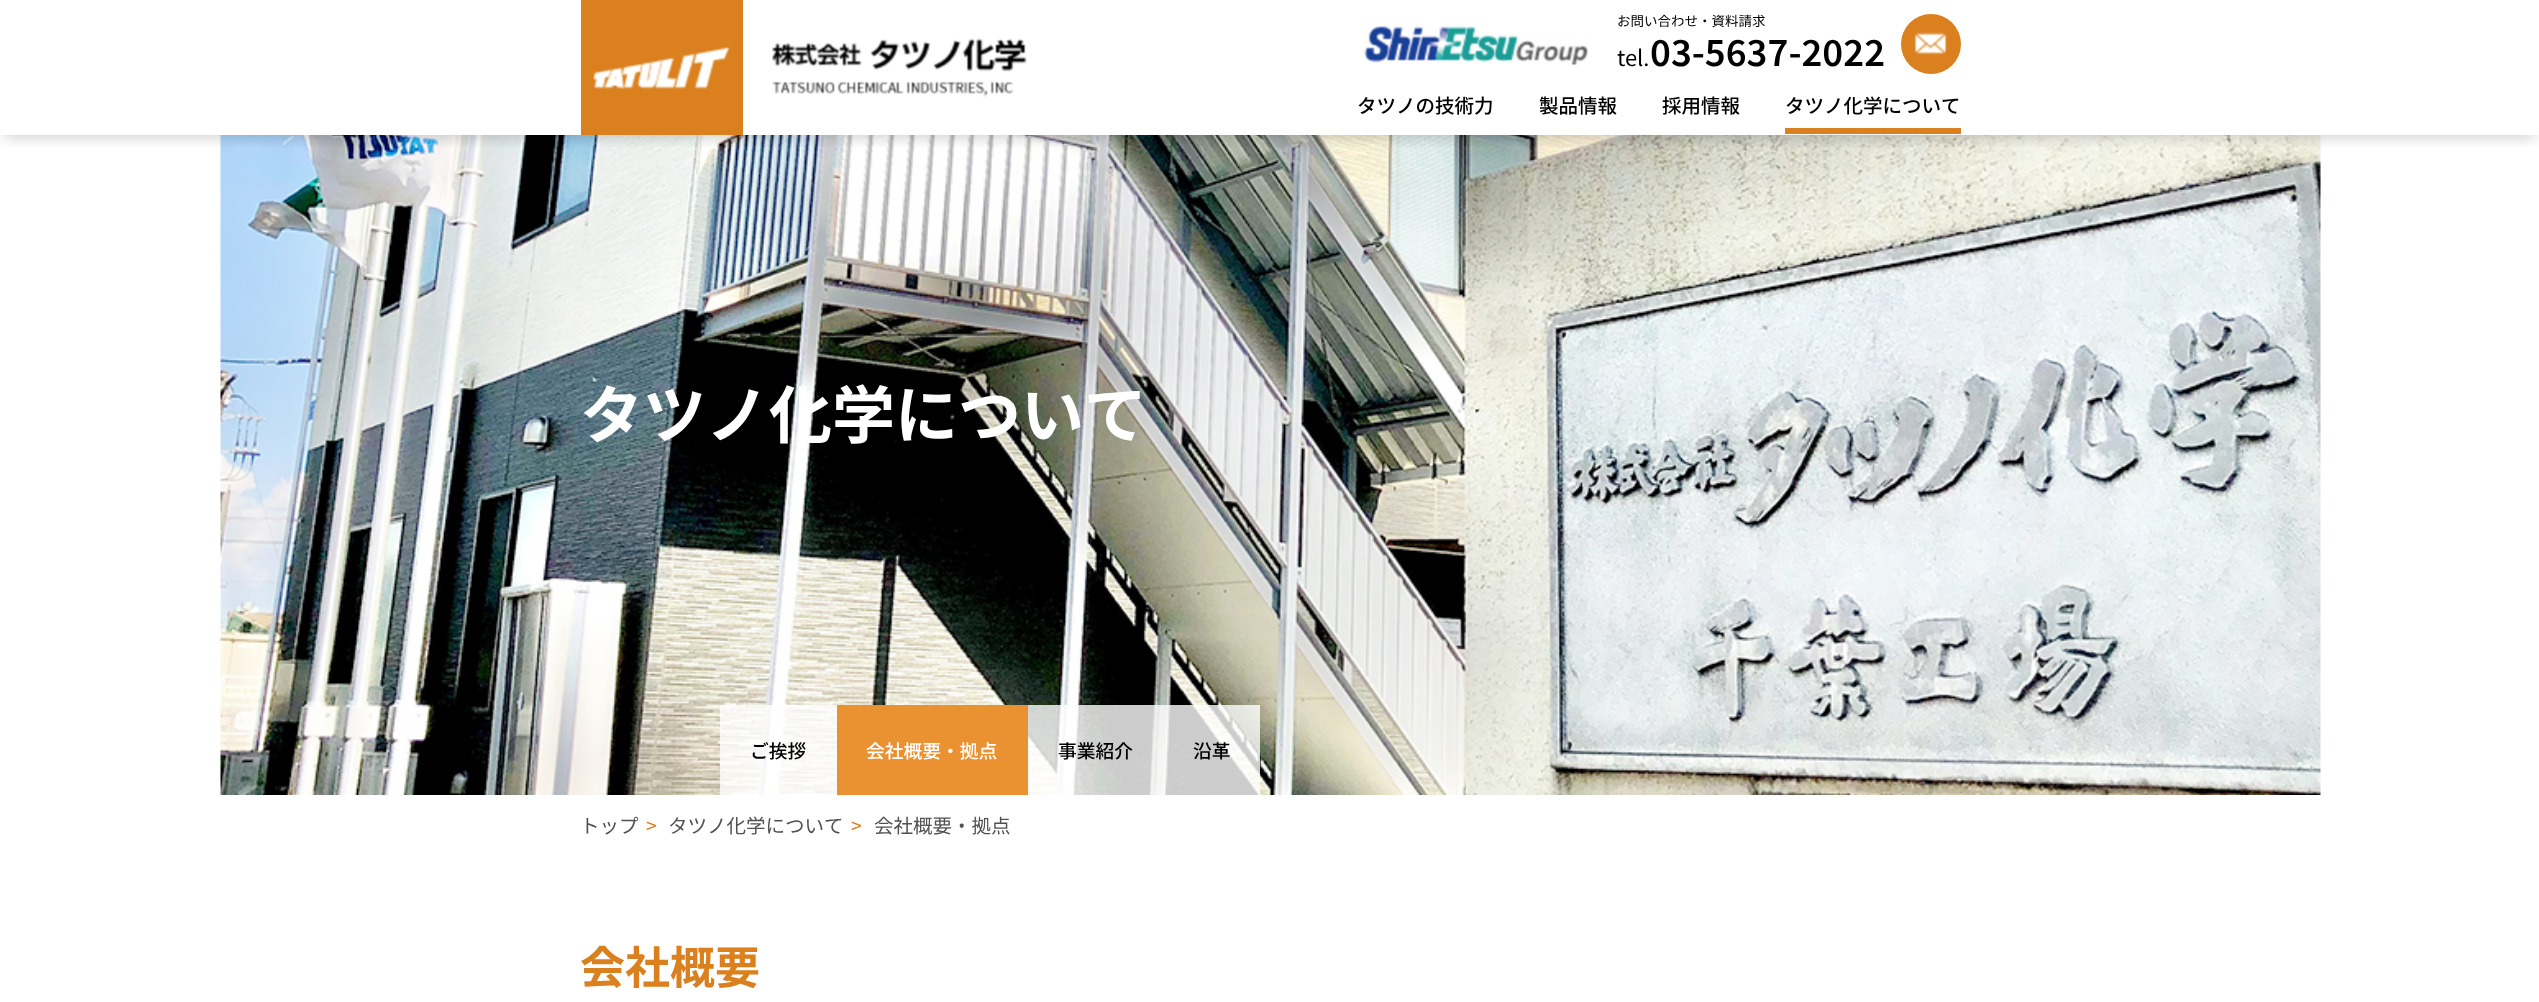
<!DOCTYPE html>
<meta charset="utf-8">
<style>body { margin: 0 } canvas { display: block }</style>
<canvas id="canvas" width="2539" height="1002"></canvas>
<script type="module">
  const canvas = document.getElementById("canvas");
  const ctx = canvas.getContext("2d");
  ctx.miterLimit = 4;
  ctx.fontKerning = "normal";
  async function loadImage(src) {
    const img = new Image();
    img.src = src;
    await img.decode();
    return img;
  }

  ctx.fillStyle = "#ffffff";
  ctx.fillRect(0, 0, 2539, 1002);
  ctx.drawImage(await loadImage("img5.png"), 220, 135, 2101, 660);
  ctx.save();
  ctx.beginPath();
  ctx.rect(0, 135, 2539, 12);
  ctx.clip();
  ctx.fillStyle = "rgba(0, 0, 0, 0.2)";
  ctx.filter = "blur(7.5px)";
  ctx.beginPath();
  ctx.rect(5, 11, 2530, 126);
  ctx.fill();
  ctx.filter = "none";
  ctx.restore();
  ctx.fillStyle = "#da801f";
  ctx.fillRect(581, 0, 162, 135);
  ctx.drawImage(await loadImage("img1.png"), 593, 47, 137, 42);
  ctx.drawImage(await loadImage("img2.png"), 772, 38, 255, 59);
  ctx.drawImage(await loadImage("img3.png"), 1364, 26, 224, 39);
  ctx.font = "13.5px Noto Sans JP";
  ctx.fillStyle = "#000000";
  ctx.fillText("お問い合わせ・資料請求", 1617, 26);
  ctx.font = "22px Noto Sans JP";
  ctx.fillText("tel.", 1617, 66);
  ctx.font = "600 36px Noto Sans JP";
  ctx.fillText("03-5637-2022", 1650, 66);
  ctx.fillStyle = "#da801f";
  ctx.beginPath();
  ctx.arc(1931, 44, 30, 0, Math.PI * 2);
  ctx.fill();
  ctx.drawImage(await loadImage("img4.png"), 1914, 32, 33, 23);
  ctx.font = "500 19.5px Noto Sans JP";
  ctx.fillStyle = "#000000";
  ctx.fillText("タツノの技術力", 1357, 113);
  ctx.fillText("製品情報", 1539, 113);
  ctx.fillText("採用情報", 1662, 113);
  ctx.fillText("タツノ化学について", 1785, 113);
  ctx.fillStyle = "#da801f";
  ctx.fillRect(1785, 128, 176, 6);
  ctx.font = "bold 63px Noto Sans JP";
  ctx.fillStyle = "#ffffff";
  ctx.fillText("タツノ化学について", 580, 438);
  ctx.fillStyle = "rgba(255, 255, 255, 0.8)";
  ctx.fillRect(720, 705, 117, 90);
  ctx.font = "500 18.75px Noto Sans JP";
  ctx.fillStyle = "#000000";
  ctx.fillText("ご挨拶", 750, 758);
  ctx.fillStyle = "#ea9131";
  ctx.fillRect(837, 705, 191, 90);
  ctx.fillStyle = "#ffffff";
  ctx.fillText("会社概要・拠点", 866, 758);
  ctx.fillStyle = "rgba(255, 255, 255, 0.8)";
  ctx.fillRect(1028, 705, 135, 90);
  ctx.fillStyle = "#000000";
  ctx.fillText("事業紹介", 1058, 758);
  ctx.fillStyle = "rgba(255, 255, 255, 0.8)";
  ctx.fillRect(1163, 705, 97, 90);
  ctx.fillStyle = "#000000";
  ctx.fillText("沿革", 1193, 758);
  ctx.font = "19.5px Noto Sans JP";
  ctx.fillStyle = "#515151";
  ctx.fillText("トップ", 580, 833);
  ctx.fillStyle = "#da801f";
  ctx.fillText(">", 646, 833);
  ctx.fillStyle = "#515151";
  ctx.fillText("タツノ化学について", 668, 833);
  ctx.fillStyle = "#da801f";
  ctx.fillText(">", 851, 833);
  ctx.fillStyle = "#515151";
  ctx.fillText("会社概要・拠点", 874, 833);
  ctx.font = "bold 45px Noto Sans JP";
  ctx.fillStyle = "#da801f";
  ctx.fillText("会社概要", 580, 984);
</script>
